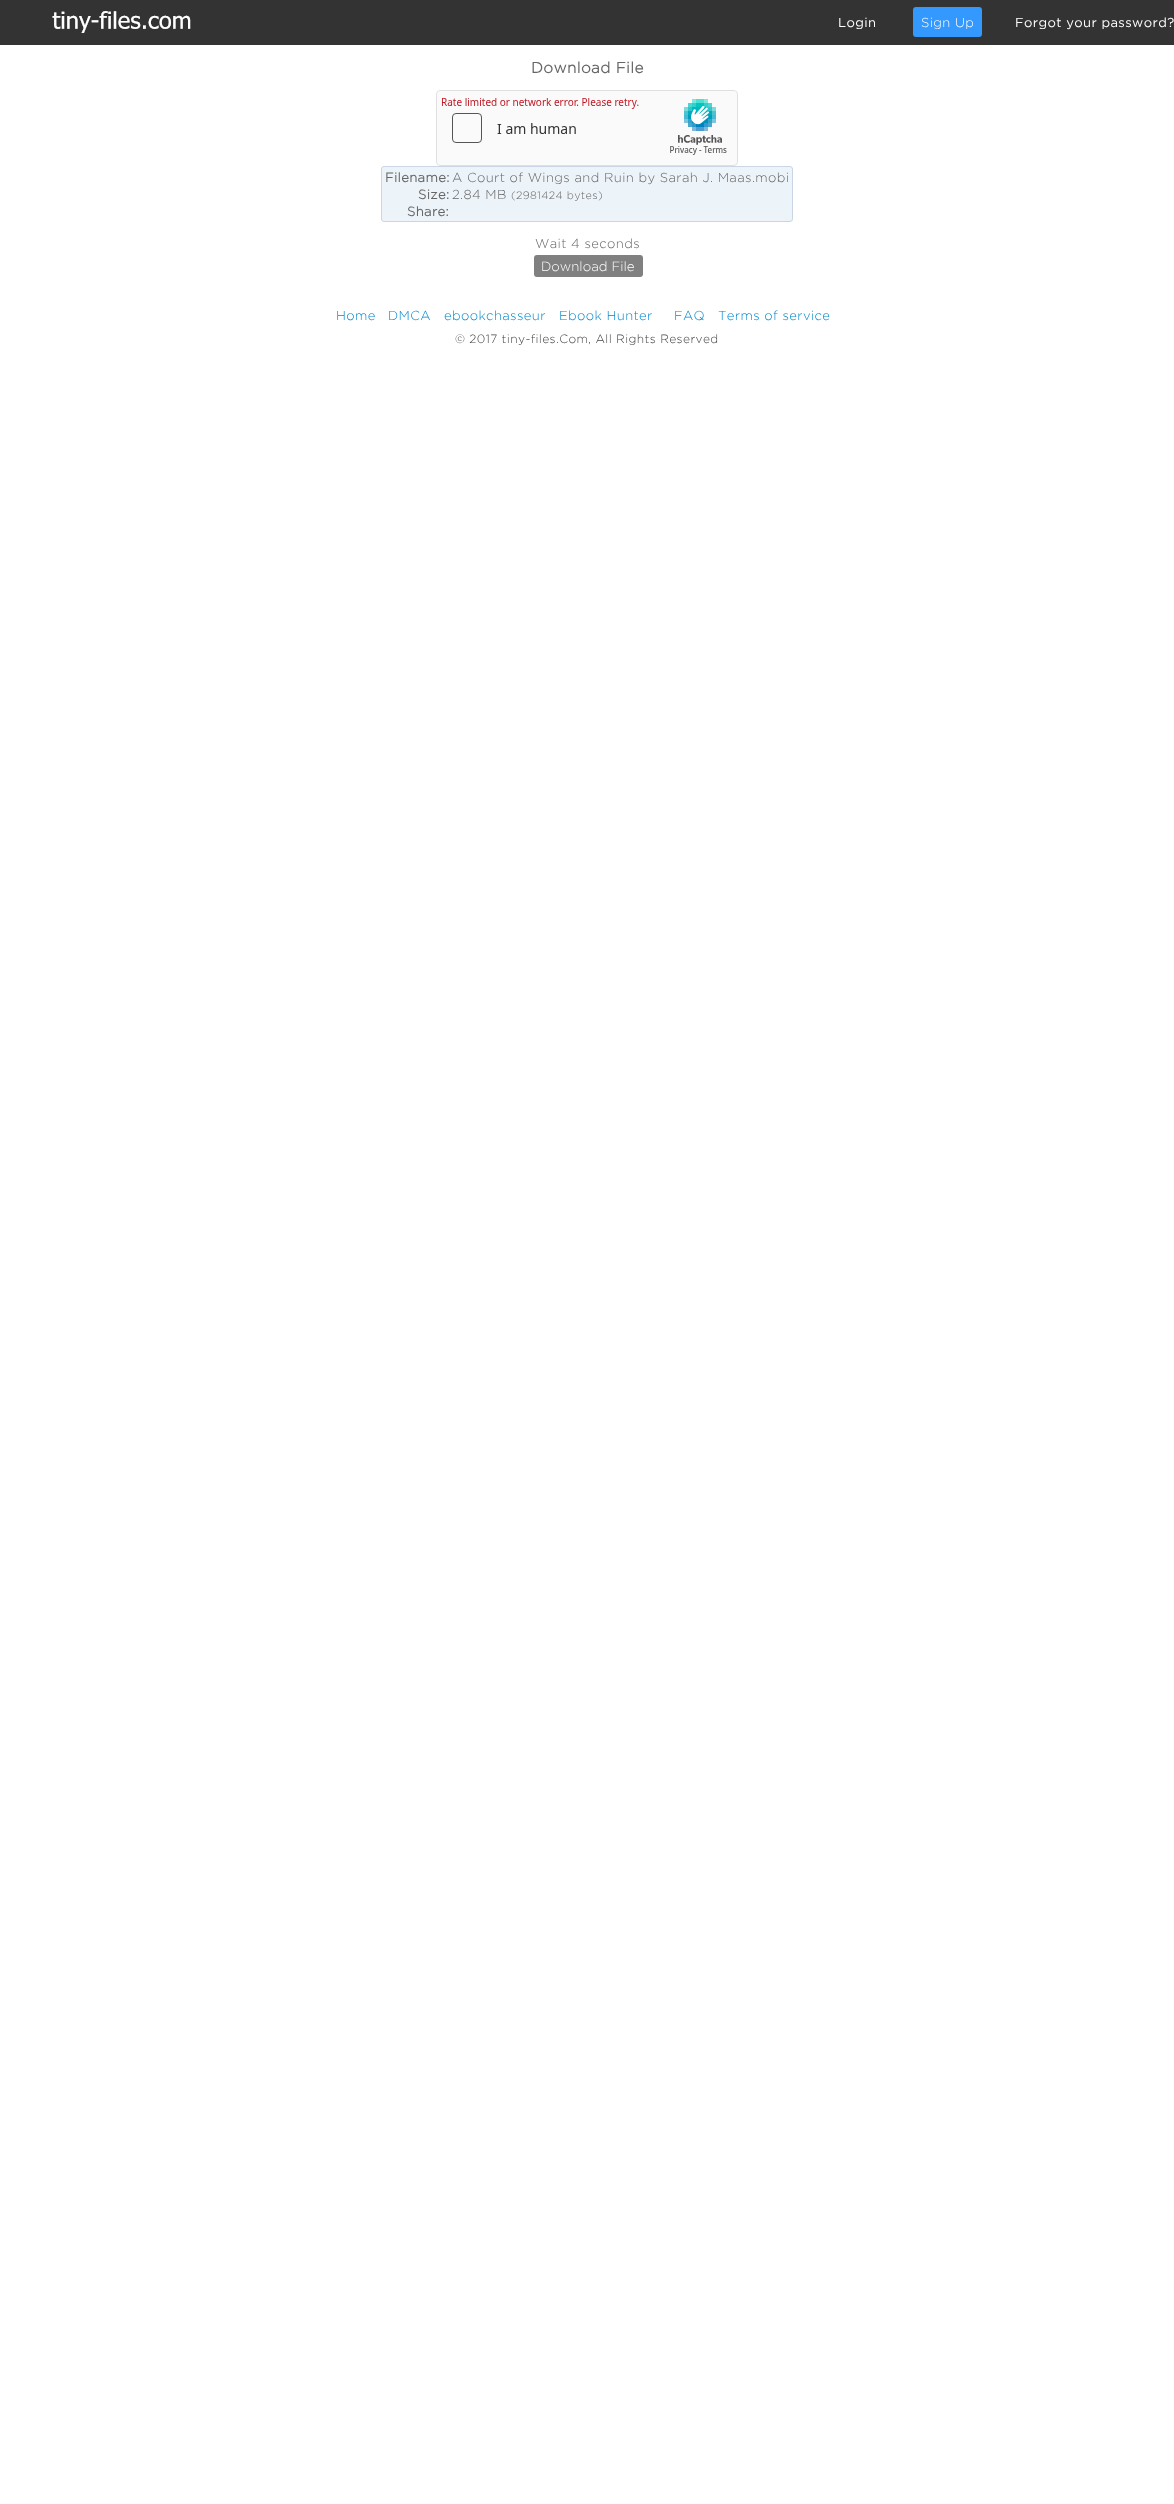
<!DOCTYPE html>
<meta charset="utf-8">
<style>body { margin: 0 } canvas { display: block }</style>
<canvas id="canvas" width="1174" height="2504"></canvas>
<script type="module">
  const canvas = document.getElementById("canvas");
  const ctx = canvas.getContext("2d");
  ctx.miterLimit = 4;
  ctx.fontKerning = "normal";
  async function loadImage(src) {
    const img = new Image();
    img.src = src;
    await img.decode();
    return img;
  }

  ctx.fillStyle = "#ffffff";
  ctx.fillRect(0, 0, 1174, 2504);
  ctx.fillStyle = "#333333";
  ctx.fillRect(0, 0, 1174, 45);
  ctx.drawImage(await loadImage("img1.png"), 52, 11, 139, 22);
  ctx.letterSpacing = "0.4px";
  ctx.font = "13px Gotham";
  ctx.fillStyle = "#ffffff";
  ctx.fillText("Login", 838, 27);
  ctx.fillStyle = "#3399ff";
  ctx.beginPath();
  ctx.roundRect(913, 7, 69, 30, 3);
  ctx.fill();
  ctx.font = "300 13px Gotham";
  ctx.fillStyle = "#ffffff";
  ctx.fillText("Sign Up", 921, 27);
  ctx.font = "13px Gotham";
  ctx.fillText("Forgot your password?", 1015, 27);
  ctx.font = "bold 15.25px Gotham";
  ctx.fillStyle = "#666666";
  ctx.fillText("Download File", 531, 73);
  ctx.drawImage(await loadImage("img2.png"), 436, 90, 302, 76);
  ctx.fillStyle = "#ecf3f9";
  ctx.beginPath();
  ctx.roundRect(381.5, 166.5, 411, 55, 2.5);
  ctx.fill();
  ctx.strokeStyle = "#cad6e6";
  ctx.stroke();
  ctx.font = "bold 13px Gotham";
  ctx.fillStyle = "#666666";
  ctx.fillText("Filename:", 385, 182);
  ctx.font = "300 13px Gotham";
  ctx.fillText("A Court of Wings and Ruin by Sarah J. Maas.mobi", 452, 182);
  ctx.font = "bold 13px Gotham";
  ctx.fillText("Size:", 418, 199);
  ctx.font = "300 13px Gotham";
  ctx.fillText("2.84 MB", 452, 199);
  ctx.font = "300 10.75px Gotham";
  ctx.fillText("(2981424 bytes)", 511, 199);
  ctx.font = "bold 13px Gotham";
  ctx.fillText("Share:", 407, 216);
  ctx.font = "300 13px Gotham";
  ctx.fillText("Wait 4 seconds", 535, 248);
  ctx.fillStyle = "#808080";
  ctx.beginPath();
  ctx.roundRect(534, 255, 109, 22, 3);
  ctx.fill();
  ctx.letterSpacing = "0px";
  ctx.font = "300 13.25px Gotham";
  ctx.fillStyle = "#ffffff";
  ctx.fillText("Download File", 541, 271);
  ctx.letterSpacing = "0.4px";
  ctx.font = "300 13px Gotham";
  ctx.fillStyle = "#0088cc";
  ctx.fillText("Home", 336, 320);
  ctx.fillText("DMCA", 388, 320);
  ctx.fillText("ebookchasseur", 444, 320);
  ctx.fillText("Ebook Hunter", 559, 320);
  ctx.fillText("FAQ", 674, 320);
  ctx.fillText("Terms of service", 718, 320);
  ctx.font = "300 12px Gotham";
  ctx.fillStyle = "#444444";
  ctx.fillText("© 2017 tiny-files.Com, All Rights Reserved", 455, 343);
</script>
